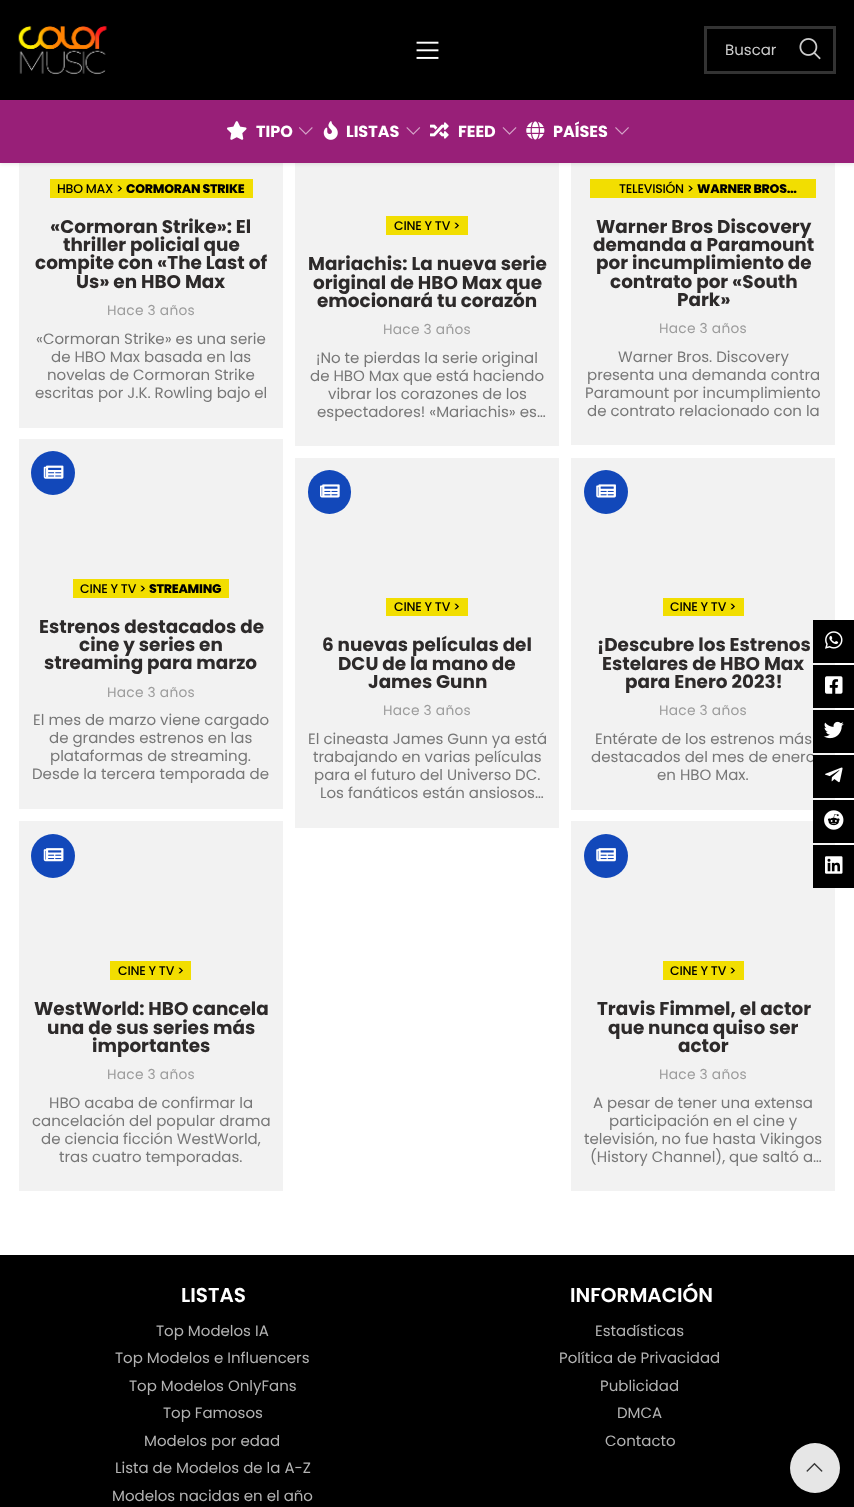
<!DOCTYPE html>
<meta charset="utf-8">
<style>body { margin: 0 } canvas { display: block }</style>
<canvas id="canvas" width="854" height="1507"></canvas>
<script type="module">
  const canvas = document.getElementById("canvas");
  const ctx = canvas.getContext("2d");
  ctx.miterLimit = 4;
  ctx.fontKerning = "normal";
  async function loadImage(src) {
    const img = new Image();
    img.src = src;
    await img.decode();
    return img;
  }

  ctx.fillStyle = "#ffffff";
  ctx.fillRect(0, 0, 854, 1507);
  ctx.fillStyle = "#f2f2f2";
  ctx.fillRect(19, 163, 264, 265);
  ctx.fillRect(295, 163, 264, 283);
  ctx.fillRect(571, 163, 264, 282);
  ctx.fillStyle = "rgba(0, 0, 0, 0.1)";
  ctx.filter = "blur(2px)";
  ctx.beginPath();
  ctx.rect(0, 1, 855, 163);
  ctx.fill();
  ctx.filter = "none";
  ctx.fillStyle = "#000000";
  ctx.fillRect(0, 0, 854, 100);
  ctx.drawImage(await loadImage("img1.png"), 18, 26, 89, 49);
  ctx.drawImage(await loadImage("img2.png"), 416, 41, 23, 18);
  ctx.strokeStyle = "#333333";
  ctx.lineWidth = 3;
  ctx.strokeRect(705.5, 27.5, 129, 45);
  ctx.font = "15px Poppins";
  ctx.fillStyle = "#cccccc";
  ctx.fillText("Buscar", 725, 55);
  ctx.drawImage(await loadImage("img3.png"), 799, 38, 22, 22);
  ctx.fillStyle = "#981f78";
  ctx.fillRect(0, 100, 854, 63);
  ctx.drawImage(await loadImage("img4.png"), 227, 121, 20, 19);
  ctx.font = "bold 16px Poppins";
  ctx.fillStyle = "#ffffff";
  ctx.fillText("TIPO", 256, 137);
  ctx.drawImage(await loadImage("img5.png"), 299, 127, 14, 8);
  ctx.drawImage(await loadImage("img6.png"), 323, 121, 15, 19);
  ctx.fillText("LISTAS", 346, 137);
  ctx.drawImage(await loadImage("img7.png"), 406, 127, 15, 8);
  ctx.drawImage(await loadImage("img8.png"), 430, 122, 19, 17);
  ctx.fillText("FEED", 458, 137);
  ctx.drawImage(await loadImage("img9.png"), 502, 127, 15, 8);
  ctx.drawImage(await loadImage("img10.png"), 526, 121, 19, 19);
  ctx.fillText("PAÍSES", 553, 137);
  ctx.drawImage(await loadImage("img11.png"), 615, 127, 14, 8);
  ctx.fillStyle = "#f2de01";
  ctx.fillRect(50, 179, 203, 19);
  ctx.letterSpacing = "-0.25px";
  ctx.font = "500 12.5px Poppins";
  ctx.fillStyle = "#000000";
  ctx.fillText("HBO MAX >", 57, 193);
  ctx.font = "800 12.5px Poppins";
  ctx.fillText("CORMORAN STRIKE", 126, 193);
  ctx.letterSpacing = "0px";
  ctx.font = "bold 18.4px Poppins";
  ctx.fillStyle = "#2d2a2a";
  ctx.fillText("«Cormoran Strike»: El", 50, 233);
  ctx.fillText("thriller policial que", 63, 251);
  ctx.fillText("compite con «The Last of", 35, 269);
  ctx.fillText("Us» en HBO Max", 76, 288);
  ctx.letterSpacing = "0.25px";
  ctx.font = "13.75px Poppins";
  ctx.fillStyle = "#9c9c9c";
  ctx.fillText("Hace 3 años", 107, 315);
  ctx.letterSpacing = "0px";
  ctx.font = "15px Poppins";
  ctx.fillStyle = "#777777";
  ctx.fillText("«Cormoran Strike» es una serie", 36, 344);
  ctx.fillText("de HBO Max basada en las", 51, 362);
  ctx.fillText("novelas de Cormoran Strike", 47, 380);
  ctx.fillText("escritas por J.K. Rowling bajo el", 35, 398);
  ctx.fillStyle = "#f2de01";
  ctx.fillRect(386, 216, 82, 19);
  ctx.letterSpacing = "-0.25px";
  ctx.font = "500 12.5px Poppins";
  ctx.fillStyle = "#000000";
  ctx.fillText("CINE Y TV >", 394, 230);
  ctx.letterSpacing = "0px";
  ctx.font = "bold 18.4px Poppins";
  ctx.fillStyle = "#2d2a2a";
  ctx.fillText("Mariachis: La nueva serie", 308, 270);
  ctx.fillText("original de HBO Max que", 313, 289);
  ctx.fillText("emocionará tu corazón", 317, 307);
  ctx.letterSpacing = "0.25px";
  ctx.font = "13.75px Poppins";
  ctx.fillStyle = "#9c9c9c";
  ctx.fillText("Hace 3 años", 383, 334);
  ctx.letterSpacing = "0px";
  ctx.font = "15px Poppins";
  ctx.fillStyle = "#777777";
  ctx.fillText("¡No te pierdas la serie original", 316, 363);
  ctx.fillText("de HBO Max que está haciendo", 310, 381);
  ctx.fillText("vibrar los corazones de los", 328, 399);
  ctx.fillText("espectadores! «Mariachis» es…", 317, 417);
  ctx.fillStyle = "#f2de01";
  ctx.fillRect(590, 179, 226, 19);
  ctx.letterSpacing = "-0.25px";
  ctx.font = "500 12.5px Poppins";
  ctx.fillStyle = "#000000";
  ctx.fillText("TELEVISIÓN >", 619, 193);
  ctx.font = "800 12.5px Poppins";
  ctx.fillText("WARNER BROS…", 697, 193);
  ctx.letterSpacing = "0px";
  ctx.font = "bold 18.4px Poppins";
  ctx.fillStyle = "#2d2a2a";
  ctx.fillText("Warner Bros Discovery", 596, 233);
  ctx.fillText("demanda a Paramount", 593, 251);
  ctx.fillText("por incumplimiento de", 596, 269);
  ctx.fillText("contrato por «South", 610, 288);
  ctx.fillText("Park»", 677, 306);
  ctx.letterSpacing = "0.25px";
  ctx.font = "13.75px Poppins";
  ctx.fillStyle = "#9c9c9c";
  ctx.fillText("Hace 3 años", 659, 333);
  ctx.letterSpacing = "0px";
  ctx.font = "15px Poppins";
  ctx.fillStyle = "#777777";
  ctx.fillText("Warner Bros. Discovery", 618, 362);
  ctx.fillText("presenta una demanda contra", 587, 380);
  ctx.fillText("Paramount por incumplimiento", 585, 398);
  ctx.fillText("de contrato relacionado con la", 587, 416);
  ctx.fillStyle = "#f2f2f2";
  ctx.fillRect(19, 439, 264, 370);
  ctx.fillStyle = "#1248ba";
  ctx.beginPath();
  ctx.arc(53, 473, 22, 0, Math.PI * 2);
  ctx.fill();
  ctx.drawImage(await loadImage("img12.png"), 43, 465, 21, 14);
  ctx.fillStyle = "#f2de01";
  ctx.fillRect(73, 579, 156, 19);
  ctx.letterSpacing = "-0.25px";
  ctx.font = "500 12.5px Poppins";
  ctx.fillStyle = "#000000";
  ctx.fillText("CINE Y TV >", 80, 593);
  ctx.font = "800 12.5px Poppins";
  ctx.fillText("STREAMING", 149, 593);
  ctx.letterSpacing = "0px";
  ctx.font = "bold 18.4px Poppins";
  ctx.fillStyle = "#2d2a2a";
  ctx.fillText("Estrenos destacados de", 39, 633);
  ctx.fillText("cine y series en", 79, 651);
  ctx.fillText("streaming para marzo", 44, 669);
  ctx.letterSpacing = "0.25px";
  ctx.font = "13.75px Poppins";
  ctx.fillStyle = "#9c9c9c";
  ctx.fillText("Hace 3 años", 107, 697);
  ctx.letterSpacing = "0px";
  ctx.font = "15px Poppins";
  ctx.fillStyle = "#777777";
  ctx.fillText("El mes de marzo viene cargado", 33, 725);
  ctx.fillText("de grandes estrenos en las", 49, 743);
  ctx.fillText("plataformas de streaming.", 50, 761);
  ctx.fillText("Desde la tercera temporada de", 32, 779);
  ctx.fillStyle = "#f2f2f2";
  ctx.fillRect(295, 458, 264, 370);
  ctx.fillStyle = "#1248ba";
  ctx.beginPath();
  ctx.roundRect(308, 470, 43, 44, 21.5);
  ctx.fill();
  ctx.drawImage(await loadImage("img13.png"), 320, 484, 20, 14);
  ctx.fillStyle = "#f2de01";
  ctx.fillRect(386, 598, 82, 18);
  ctx.letterSpacing = "-0.25px";
  ctx.font = "500 12.5px Poppins";
  ctx.fillStyle = "#000000";
  ctx.fillText("CINE Y TV >", 394, 611);
  ctx.letterSpacing = "0px";
  ctx.font = "bold 18.4px Poppins";
  ctx.fillStyle = "#2d2a2a";
  ctx.fillText("6 nuevas películas del", 322, 651);
  ctx.fillText("DCU de la mano de", 338, 670);
  ctx.fillText("James Gunn", 368, 688);
  ctx.letterSpacing = "0.25px";
  ctx.font = "13.75px Poppins";
  ctx.fillStyle = "#9c9c9c";
  ctx.fillText("Hace 3 años", 383, 715);
  ctx.letterSpacing = "0px";
  ctx.font = "15px Poppins";
  ctx.fillStyle = "#777777";
  ctx.fillText("El cineasta James Gunn ya está", 308, 744);
  ctx.fillText("trabajando en varias películas", 313, 762);
  ctx.fillText("para el futuro del Universo DC.", 314, 780);
  ctx.fillText("Los fanáticos están ansiosos…", 320, 798);
  ctx.fillStyle = "#f2f2f2";
  ctx.fillRect(571, 458, 264, 352);
  ctx.fillStyle = "#1248ba";
  ctx.beginPath();
  ctx.arc(606, 492, 22, 0, Math.PI * 2);
  ctx.fill();
  ctx.drawImage(await loadImage("img14.png"), 596, 484, 20, 14);
  ctx.fillStyle = "#f2de01";
  ctx.fillRect(663, 598, 81, 18);
  ctx.letterSpacing = "-0.25px";
  ctx.font = "500 12.5px Poppins";
  ctx.fillStyle = "#000000";
  ctx.fillText("CINE Y TV >", 670, 611);
  ctx.letterSpacing = "0px";
  ctx.font = "bold 18.4px Poppins";
  ctx.fillStyle = "#2d2a2a";
  ctx.fillText("¡Descubre los Estrenos", 597, 651);
  ctx.fillText("Estelares de HBO Max", 602, 670);
  ctx.fillText("para Enero 2023!", 625, 688);
  ctx.letterSpacing = "0.25px";
  ctx.font = "13.75px Poppins";
  ctx.fillStyle = "#9c9c9c";
  ctx.fillText("Hace 3 años", 659, 715);
  ctx.letterSpacing = "0px";
  ctx.font = "15px Poppins";
  ctx.fillStyle = "#777777";
  ctx.fillText("Entérate de los estrenos más", 595, 744);
  ctx.fillText("destacados del mes de enero", 591, 762);
  ctx.fillText("en HBO Max.", 657, 780);
  ctx.fillStyle = "#f2f2f2";
  ctx.fillRect(19, 821, 264, 370);
  ctx.fillStyle = "#1248ba";
  ctx.beginPath();
  ctx.arc(53, 856, 22, 0, Math.PI * 2);
  ctx.fill();
  ctx.drawImage(await loadImage("img15.png"), 43, 848, 21, 14);
  ctx.fillStyle = "#f2de01";
  ctx.fillRect(110, 961, 81, 19);
  ctx.letterSpacing = "-0.25px";
  ctx.font = "500 12.5px Poppins";
  ctx.fillStyle = "#000000";
  ctx.fillText("CINE Y TV >", 118, 975);
  ctx.letterSpacing = "0px";
  ctx.font = "bold 18.4px Poppins";
  ctx.fillStyle = "#2d2a2a";
  ctx.fillText("WestWorld: HBO cancela", 34, 1015);
  ctx.fillText("una de sus series más", 47, 1034);
  ctx.fillText("importantes", 92, 1052);
  ctx.letterSpacing = "0.25px";
  ctx.font = "13.75px Poppins";
  ctx.fillStyle = "#9c9c9c";
  ctx.fillText("Hace 3 años", 107, 1079);
  ctx.letterSpacing = "0px";
  ctx.font = "15px Poppins";
  ctx.fillStyle = "#777777";
  ctx.fillText("HBO acaba de confirmar la", 49, 1108);
  ctx.fillText("cancelación del popular drama", 32, 1126);
  ctx.fillText("de ciencia ficción WestWorld,", 41, 1144);
  ctx.fillText("tras cuatro temporadas.", 59, 1162);
  ctx.fillStyle = "#f2f2f2";
  ctx.fillRect(571, 821, 264, 370);
  ctx.fillStyle = "#1248ba";
  ctx.beginPath();
  ctx.arc(606, 856, 22, 0, Math.PI * 2);
  ctx.fill();
  ctx.drawImage(await loadImage("img16.png"), 596, 848, 20, 14);
  ctx.fillStyle = "#f2de01";
  ctx.fillRect(663, 961, 81, 19);
  ctx.letterSpacing = "-0.25px";
  ctx.font = "500 12.5px Poppins";
  ctx.fillStyle = "#000000";
  ctx.fillText("CINE Y TV >", 670, 975);
  ctx.letterSpacing = "0px";
  ctx.font = "bold 18.4px Poppins";
  ctx.fillStyle = "#2d2a2a";
  ctx.fillText("Travis Fimmel, el actor", 597, 1015);
  ctx.fillText("que nunca quiso ser", 608, 1034);
  ctx.fillText("actor", 678, 1052);
  ctx.letterSpacing = "0.25px";
  ctx.font = "13.75px Poppins";
  ctx.fillStyle = "#9c9c9c";
  ctx.fillText("Hace 3 años", 659, 1079);
  ctx.letterSpacing = "0px";
  ctx.font = "15px Poppins";
  ctx.fillStyle = "#777777";
  ctx.fillText("A pesar de tener una extensa", 593, 1108);
  ctx.fillText("participación en el cine y", 609, 1126);
  ctx.fillText("televisión, no fue hasta Vikingos", 584, 1144);
  ctx.fillText("(History Channel), que saltó a…", 590, 1162);
  ctx.fillStyle = "#000000";
  ctx.fillRect(0, 1255, 854, 252);
  ctx.font = "600 20px Poppins";
  ctx.fillStyle = "#ffffff";
  ctx.fillText("LISTAS", 181, 1302);
  ctx.font = "15px Poppins";
  ctx.fillStyle = "#b3b3b3";
  ctx.fillText("Top Modelos IA", 156, 1336);
  ctx.fillText("Top Modelos e Influencers", 115, 1363);
  ctx.fillText("Top Modelos OnlyFans", 129, 1391);
  ctx.fillText("Top Famosos", 163, 1418);
  ctx.fillText("Modelos por edad", 144, 1446);
  ctx.fillText("Lista de Modelos de la A-Z", 115, 1473);
  ctx.fillText("Modelos nacidas en el año", 112, 1501);
  ctx.font = "600 20px Poppins";
  ctx.fillStyle = "#ffffff";
  ctx.fillText("INFORMACIÓN", 570, 1302);
  ctx.font = "15px Poppins";
  ctx.fillStyle = "#b3b3b3";
  ctx.fillText("Estadísticas", 595, 1336);
  ctx.fillText("Política de Privacidad", 559, 1363);
  ctx.fillText("Publicidad", 600, 1391);
  ctx.fillText("DMCA", 617, 1418);
  ctx.fillText("Contacto", 605, 1446);
  ctx.fillStyle = "#000000";
  ctx.fillRect(813, 620, 41, 43);
  ctx.drawImage(await loadImage("img17.png"), 825, 631, 18, 18);
  ctx.fillRect(813, 665, 41, 43);
  ctx.drawImage(await loadImage("img18.png"), 825, 676, 18, 18);
  ctx.fillRect(813, 710, 41, 43);
  ctx.drawImage(await loadImage("img19.png"), 823, 721, 21, 18);
  ctx.fillRect(813, 755, 41, 43);
  ctx.drawImage(await loadImage("img20.png"), 825, 767, 18, 16);
  ctx.fillRect(813, 800, 41, 43);
  ctx.drawImage(await loadImage("img21.png"), 824, 810, 20, 20);
  ctx.fillRect(813, 845, 41, 43);
  ctx.drawImage(await loadImage("img22.png"), 825, 856, 18, 18);
  ctx.fillStyle = "#e6e6e6";
  ctx.beginPath();
  ctx.arc(815, 1468, 25, 0, Math.PI * 2);
  ctx.fill();
  ctx.drawImage(await loadImage("img23.png"), 806, 1462, 17, 10);
</script>
